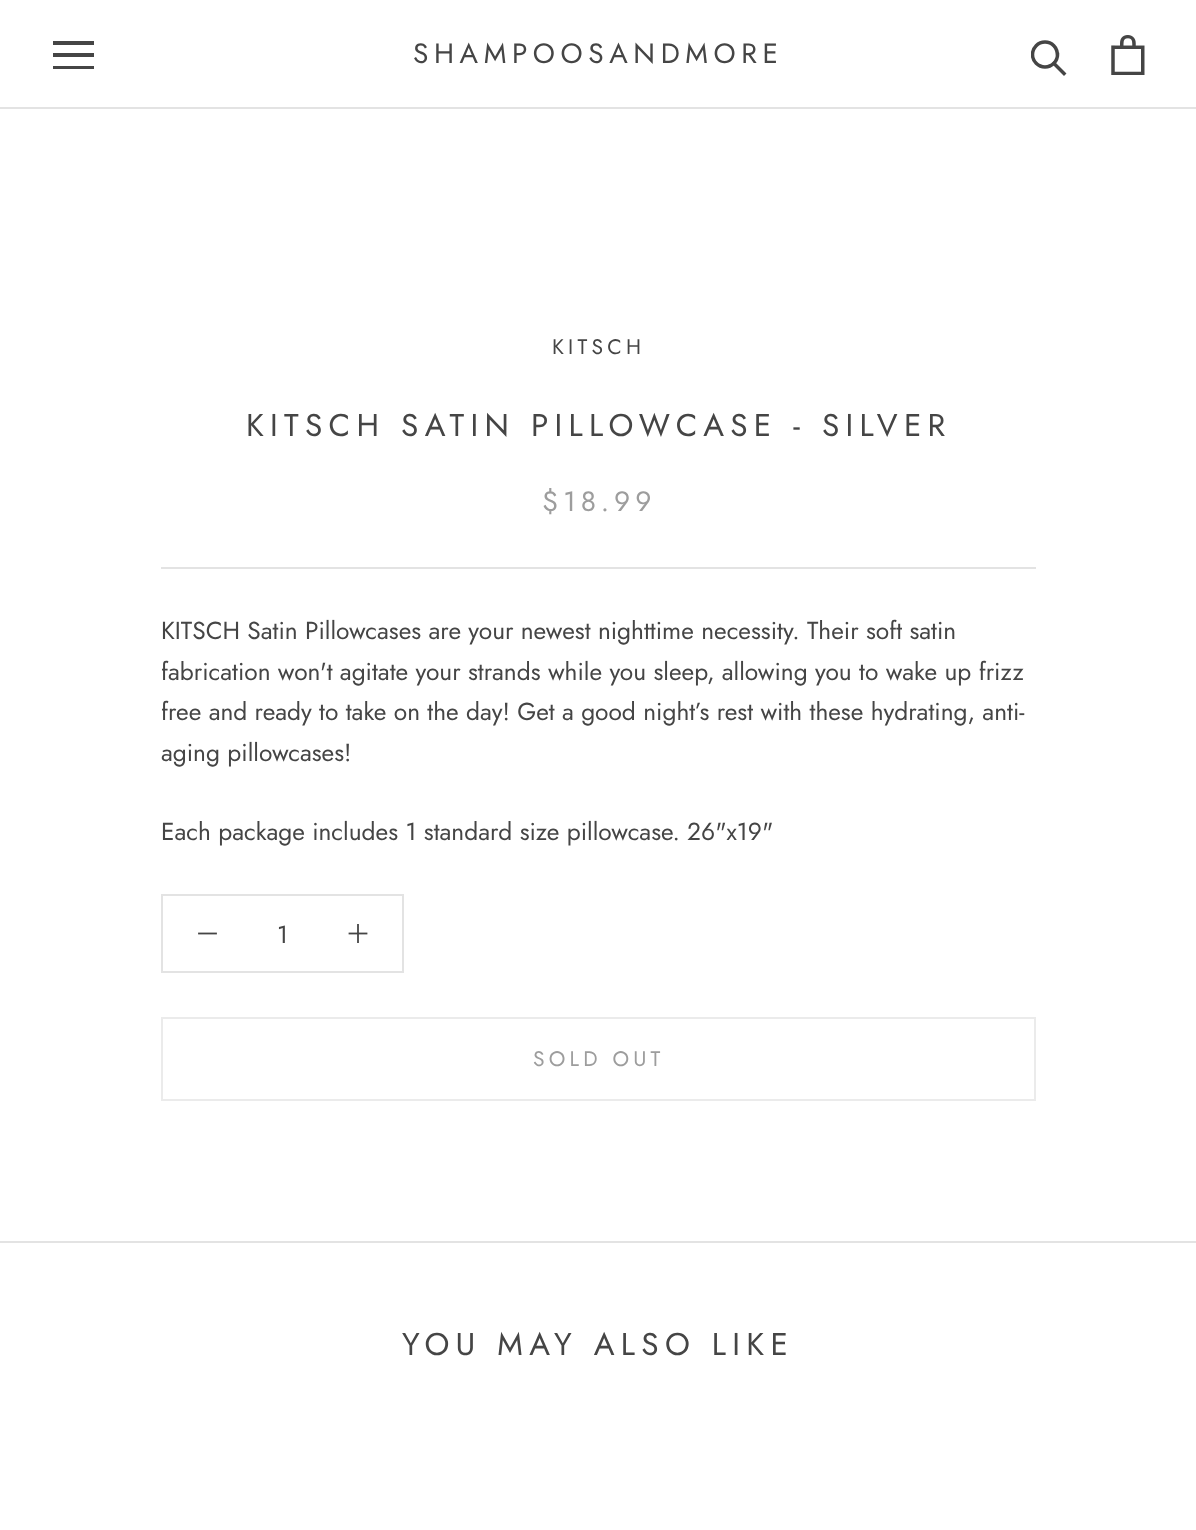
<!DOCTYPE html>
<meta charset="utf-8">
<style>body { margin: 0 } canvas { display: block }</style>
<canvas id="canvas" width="1196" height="1530"></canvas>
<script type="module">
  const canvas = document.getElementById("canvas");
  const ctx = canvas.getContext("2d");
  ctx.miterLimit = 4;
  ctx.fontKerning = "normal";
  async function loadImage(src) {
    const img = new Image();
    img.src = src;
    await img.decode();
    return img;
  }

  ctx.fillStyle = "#ffffff";
  ctx.fillRect(0, 0, 1196, 1530);
  ctx.fillStyle = "#e3e3e3";
  ctx.fillRect(0, 107, 1196, 2);
  ctx.save();
  ctx.beginPath();
  ctx.rect(53, 40, 42, 30);
  ctx.clip();
  ctx.fillStyle = "#454545";
  ctx.beginPath();
  ctx.moveTo(52, 69);
  ctx.lineTo(52, 66);
  ctx.lineTo(94, 66);
  ctx.lineTo(94, 69);
  ctx.closePath();
  ctx.moveTo(52, 53);
  ctx.lineTo(94, 53);
  ctx.lineTo(94, 57);
  ctx.lineTo(52, 57);
  ctx.closePath();
  ctx.moveTo(52, 41);
  ctx.lineTo(94, 41);
  ctx.lineTo(94, 45);
  ctx.lineTo(52, 45);
  ctx.closePath();
  ctx.fill();
  ctx.restore();
  ctx.letterSpacing = "5.6px";
  ctx.font = "28px Jost";
  ctx.fillStyle = "#454545";
  ctx.fillText("SHAMPOOSANDMORE", 413, 63);
  ctx.beginPath();
  ctx.moveTo(1064, 73.5);
  ctx.lineTo(1054, 63.5);
  ctx.strokeStyle = "#454545";
  ctx.lineWidth = 3.5;
  ctx.lineCap = "square";
  ctx.stroke();
  ctx.save();
  ctx.beginPath();
  ctx.rect(1031, 40, 37, 37);
  ctx.clip();
  ctx.beginPath();
  ctx.arc(1045, 54.5, 12.5, 0, Math.PI * 2);
  ctx.stroke();
  ctx.restore();
  ctx.drawImage(await loadImage("img1.png"), 1111, 35, 34, 40);
  ctx.letterSpacing = "4.25px";
  ctx.font = "21px Jost";
  ctx.fillText("KITSCH", 552, 354);
  ctx.letterSpacing = "6.3px";
  ctx.font = "31.5px Jost";
  ctx.fillText("KITSCH SATIN PILLOWCASE - SILVER", 246, 436);
  ctx.letterSpacing = "5px";
  ctx.font = "28px Jost";
  ctx.fillStyle = "#9d9d9d";
  ctx.fillText("$18.99", 542, 511);
  ctx.fillStyle = "#e3e3e3";
  ctx.fillRect(161, 567, 875, 2);
  ctx.letterSpacing = "0px";
  ctx.font = "24.5px Jost";
  ctx.fillStyle = "#454545";
  ctx.fillText("KITSCH Satin Pillowcases are your newest nighttime necessity. Their soft satin", 161, 639);
  ctx.fillText("fabrication won't agitate your strands while you sleep, allowing you to wake up frizz", 161, 680);
  ctx.fillText("free and ready to take on the day! Get a good night’s rest with these hydrating, anti-", 161, 720);
  ctx.fillText("aging pillowcases!", 161, 761);
  ctx.fillText("Each package includes 1 standard size pillowcase. 26\"x19\"", 161, 840);
  ctx.strokeStyle = "#e3e3e3";
  ctx.lineWidth = 2;
  ctx.strokeRect(162, 895, 241, 77);
  ctx.beginPath();
  ctx.moveTo(199, 933.5);
  ctx.lineTo(216, 933.5);
  ctx.strokeStyle = "#454545";
  ctx.lineWidth = 1.8;
  ctx.stroke();
  ctx.fillText("1", 277, 943);
  ctx.fillStyle = "#585858";
  ctx.fillRect(357, 924, 2, 19);
  ctx.beginPath();
  ctx.moveTo(349.5, 933.5);
  ctx.lineTo(366.5, 933.5);
  ctx.stroke();
  ctx.strokeStyle = "#ebebeb";
  ctx.lineWidth = 2;
  ctx.strokeRect(162, 1018, 873, 82);
  ctx.letterSpacing = "4.25px";
  ctx.font = "21px Jost";
  ctx.fillStyle = "#9d9d9d";
  ctx.fillText("SOLD OUT", 533, 1066);
  ctx.fillStyle = "#e3e3e3";
  ctx.fillRect(0, 1241, 1196, 2);
  ctx.letterSpacing = "6.3px";
  ctx.font = "31.5px Jost";
  ctx.fillStyle = "#454545";
  ctx.fillText("YOU MAY ALSO LIKE", 402, 1355);
</script>
